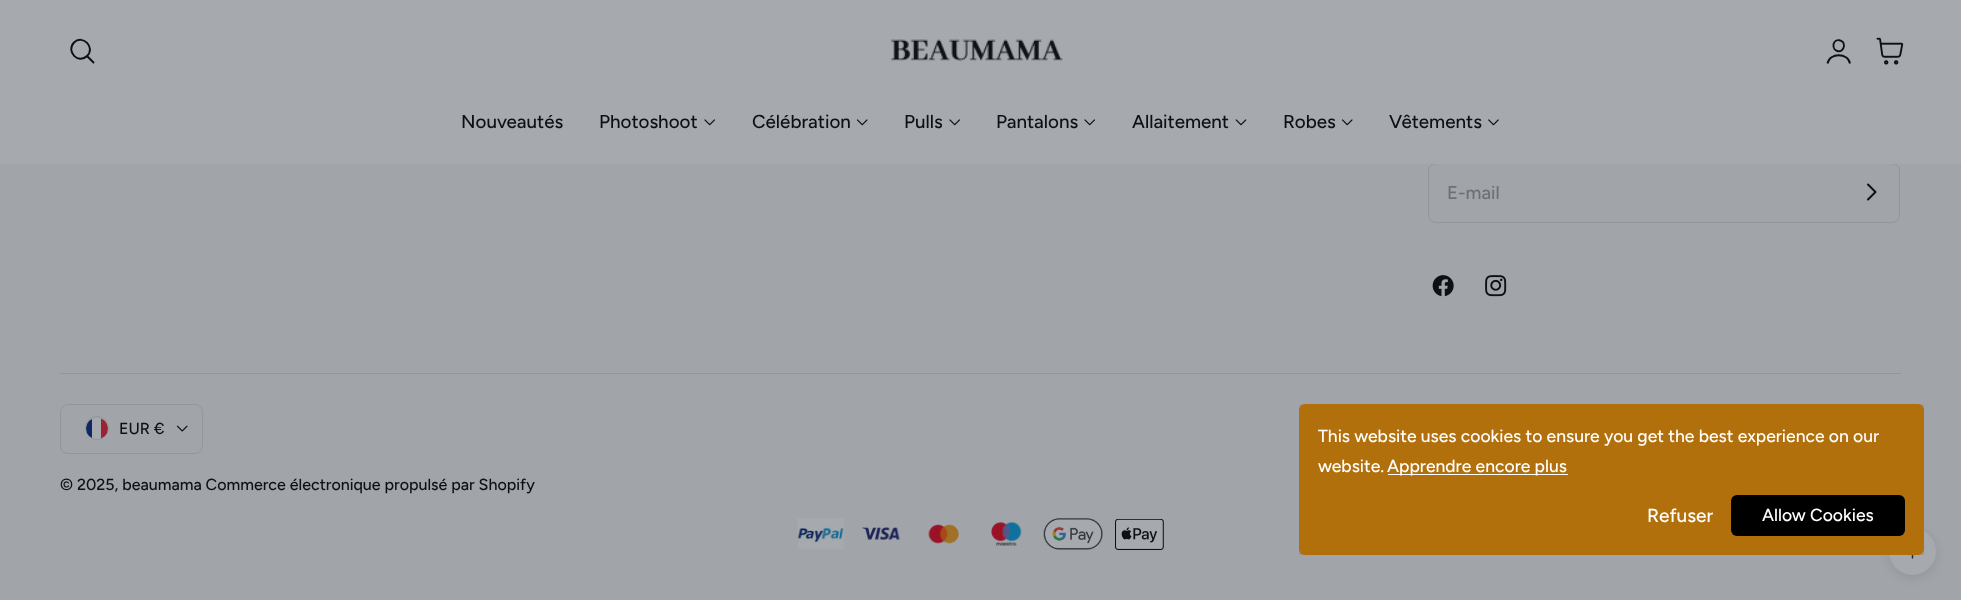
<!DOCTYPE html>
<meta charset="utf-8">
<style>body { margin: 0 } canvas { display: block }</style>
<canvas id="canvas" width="1961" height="600"></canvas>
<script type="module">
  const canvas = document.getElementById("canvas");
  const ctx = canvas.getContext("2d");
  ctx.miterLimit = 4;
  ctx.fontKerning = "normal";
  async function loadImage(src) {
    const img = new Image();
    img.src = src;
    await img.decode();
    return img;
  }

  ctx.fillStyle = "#a1a5a9";
  ctx.fillRect(0, 0, 1961, 600);
  ctx.beginPath();
  ctx.roundRect(1428.5, 163.5, 471, 59, 7.5);
  ctx.strokeStyle = "#92969a";
  ctx.stroke();
  ctx.fillStyle = "#a6aaaf";
  ctx.fillRect(0, 0, 1961, 164);
  ctx.beginPath();
  ctx.moveTo(93.5, 62.5);
  ctx.lineTo(87, 56);
  ctx.moveTo(87, 56);
  ctx.bezierCurveTo(96, 47.5, 82.5, 34, 74, 42.5);
  ctx.bezierCurveTo(65.5, 51.5, 78.5, 64.5, 87, 56);
  ctx.closePath();
  ctx.strokeStyle = "#0d1116";
  ctx.lineWidth = 1.9;
  ctx.lineCap = "round";
  ctx.lineJoin = "round";
  ctx.stroke();
  ctx.drawImage(await loadImage("img1.png"), 891, 39, 172, 22);
  ctx.beginPath();
  ctx.moveTo(1844, 46);
  ctx.bezierCurveTo(1843, 54, 1832.5, 52.5, 1833.5, 44.5);
  ctx.bezierCurveTo(1834.5, 38, 1844.5, 39, 1844, 46);
  ctx.closePath();
  ctx.stroke();
  ctx.beginPath();
  ctx.moveTo(1827.5, 63.5);
  ctx.bezierCurveTo(1829.5, 52.5, 1848, 52.5, 1850, 63.5);
  ctx.lineCap = "butt";
  ctx.lineJoin = "miter";
  ctx.stroke();
  ctx.drawImage(await loadImage("img2.png"), 1876, 37, 28, 28);
  ctx.font = "500 18.75px Figtree";
  ctx.fillStyle = "#0d1116";
  ctx.fillText("Nouveautés", 461, 128);
  ctx.fillText("Photoshoot", 599, 128);
  ctx.drawImage(await loadImage("img3.png"), 704, 119, 11, 7);
  ctx.fillText("Célébration", 752, 128);
  ctx.drawImage(await loadImage("img4.png"), 856, 119, 12, 7);
  ctx.fillText("Pulls", 904, 128);
  ctx.drawImage(await loadImage("img3.png"), 949, 119, 11, 7);
  ctx.fillText("Pantalons", 996, 128);
  ctx.drawImage(await loadImage("img3.png"), 1084, 119, 11, 7);
  ctx.fillText("Allaitement", 1132, 128);
  ctx.drawImage(await loadImage("img5.png"), 1235, 119, 12, 7);
  ctx.fillText("Robes", 1283, 128);
  ctx.drawImage(await loadImage("img4.png"), 1341, 119, 12, 7);
  ctx.fillText("Vêtements", 1389, 128);
  ctx.drawImage(await loadImage("img6.png"), 1488, 119, 11, 7);
  ctx.font = "500 18.5px Figtree";
  ctx.fillStyle = "#6d7176";
  ctx.fillText("E-mail", 1447, 199);
  ctx.beginPath();
  ctx.moveTo(1868, 184.5);
  ctx.lineTo(1875.5, 192);
  ctx.lineTo(1868, 199.5);
  ctx.lineWidth = 2;
  ctx.lineCap = "round";
  ctx.lineJoin = "round";
  ctx.stroke();
  ctx.drawImage(await loadImage("img7.png"), 1432, 275, 22, 22);
  ctx.drawImage(await loadImage("img8.png"), 1485, 275, 22, 22);
  ctx.fillStyle = "#92969a";
  ctx.fillRect(60, 373, 1841, 1);
  ctx.beginPath();
  ctx.roundRect(60.5, 404.5, 142, 49, 7.5);
  ctx.strokeStyle = "#92969a";
  ctx.lineWidth = 1;
  ctx.lineJoin = "miter";
  ctx.stroke();
  ctx.beginPath();
  ctx.arc(97, 428, 11.5, 0, Math.PI * 2);
  ctx.stroke();
  ctx.fillStyle = "#a6aaaf";
  ctx.beginPath();
  ctx.roundRect(86, 418, 22, 21, 10.5);
  ctx.fill();
  ctx.save();
  ctx.beginPath();
  ctx.roundRect(86, 418, 22, 21, 10.5);
  ctx.clip();
  ctx.fillStyle = "#0d2862";
  ctx.fillRect(86, 418, 6, 21);
  ctx.fillStyle = "#9f2032";
  ctx.fillRect(101, 418, 7, 21);
  ctx.restore();
  ctx.font = "500 16.05px Figtree";
  ctx.fillStyle = "#0d1116";
  ctx.fillText("EUR €", 119, 434);
  ctx.drawImage(await loadImage("img9.png"), 176, 425, 12, 7);
  ctx.fillText("© 2025, beaumama Commerce électronique propulsé par Shopify", 60, 490);
  ctx.fillStyle = "rgba(13, 17, 22, 0.1)";
  ctx.filter = "blur(5px)";
  ctx.beginPath();
  ctx.roundRect(1889, 530, 47, 48, 23.5);
  ctx.fill();
  ctx.filter = "none";
  ctx.fillStyle = "#a6aaaf";
  ctx.beginPath();
  ctx.arc(1912.5, 551.5, 23.5, 0, Math.PI * 2);
  ctx.fill();
  ctx.beginPath();
  ctx.moveTo(1907, 550.5);
  ctx.lineTo(1912.5, 544.5);
  ctx.moveTo(1912.5, 544.5);
  ctx.lineTo(1918.5, 550.5);
  ctx.moveTo(1912.5, 544.5);
  ctx.lineTo(1912.5, 558);
  ctx.strokeStyle = "#282c31";
  ctx.lineWidth = 1.5;
  ctx.lineJoin = "round";
  ctx.stroke();
  ctx.save();
  ctx.beginPath();
  ctx.rect(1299, 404, 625, 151);
  ctx.clip();
  ctx.fillStyle = "rgba(0, 0, 0, 0.2)";
  ctx.filter = "blur(6px)";
  ctx.beginPath();
  ctx.roundRect(1299, 406, 625, 152, 6);
  ctx.fill();
  ctx.filter = "none";
  ctx.restore();
  ctx.fillStyle = "#b2700c";
  ctx.beginPath();
  ctx.roundRect(1299, 404, 625, 151, 6);
  ctx.fill();
  ctx.font = "500 17.5px Figtree";
  ctx.fillStyle = "#ffffff";
  ctx.fillText("This website uses cookies to ensure you get the best experience on our", 1318, 442);
  ctx.fillText("website.", 1318, 472);
  ctx.fillRect(1388, 474, 180, 1);
  ctx.fillText("Apprendre encore plus", 1387, 472);
  ctx.font = "500 19px Figtree";
  ctx.fillText("Refuser", 1647, 522);
  ctx.fillStyle = "#000000";
  ctx.beginPath();
  ctx.roundRect(1731, 495, 174, 41, 6);
  ctx.fill();
  ctx.font = "500 17.5px Figtree";
  ctx.fillStyle = "#ffffff";
  ctx.fillText("Allow Cookies", 1762, 521);
  ctx.drawImage(await loadImage("img10.png"), 797, 518, 47, 32);
  ctx.drawImage(await loadImage("img11.png"), 862, 527, 38, 13);
  ctx.drawImage(await loadImage("img12.png"), 928, 524, 31, 20);
  ctx.drawImage(await loadImage("img13.png"), 991, 522, 31, 24);
  ctx.drawImage(await loadImage("img14.png"), 1043, 518, 60, 32);
  ctx.drawImage(await loadImage("img15.png"), 1115, 519, 49, 31);
</script>
